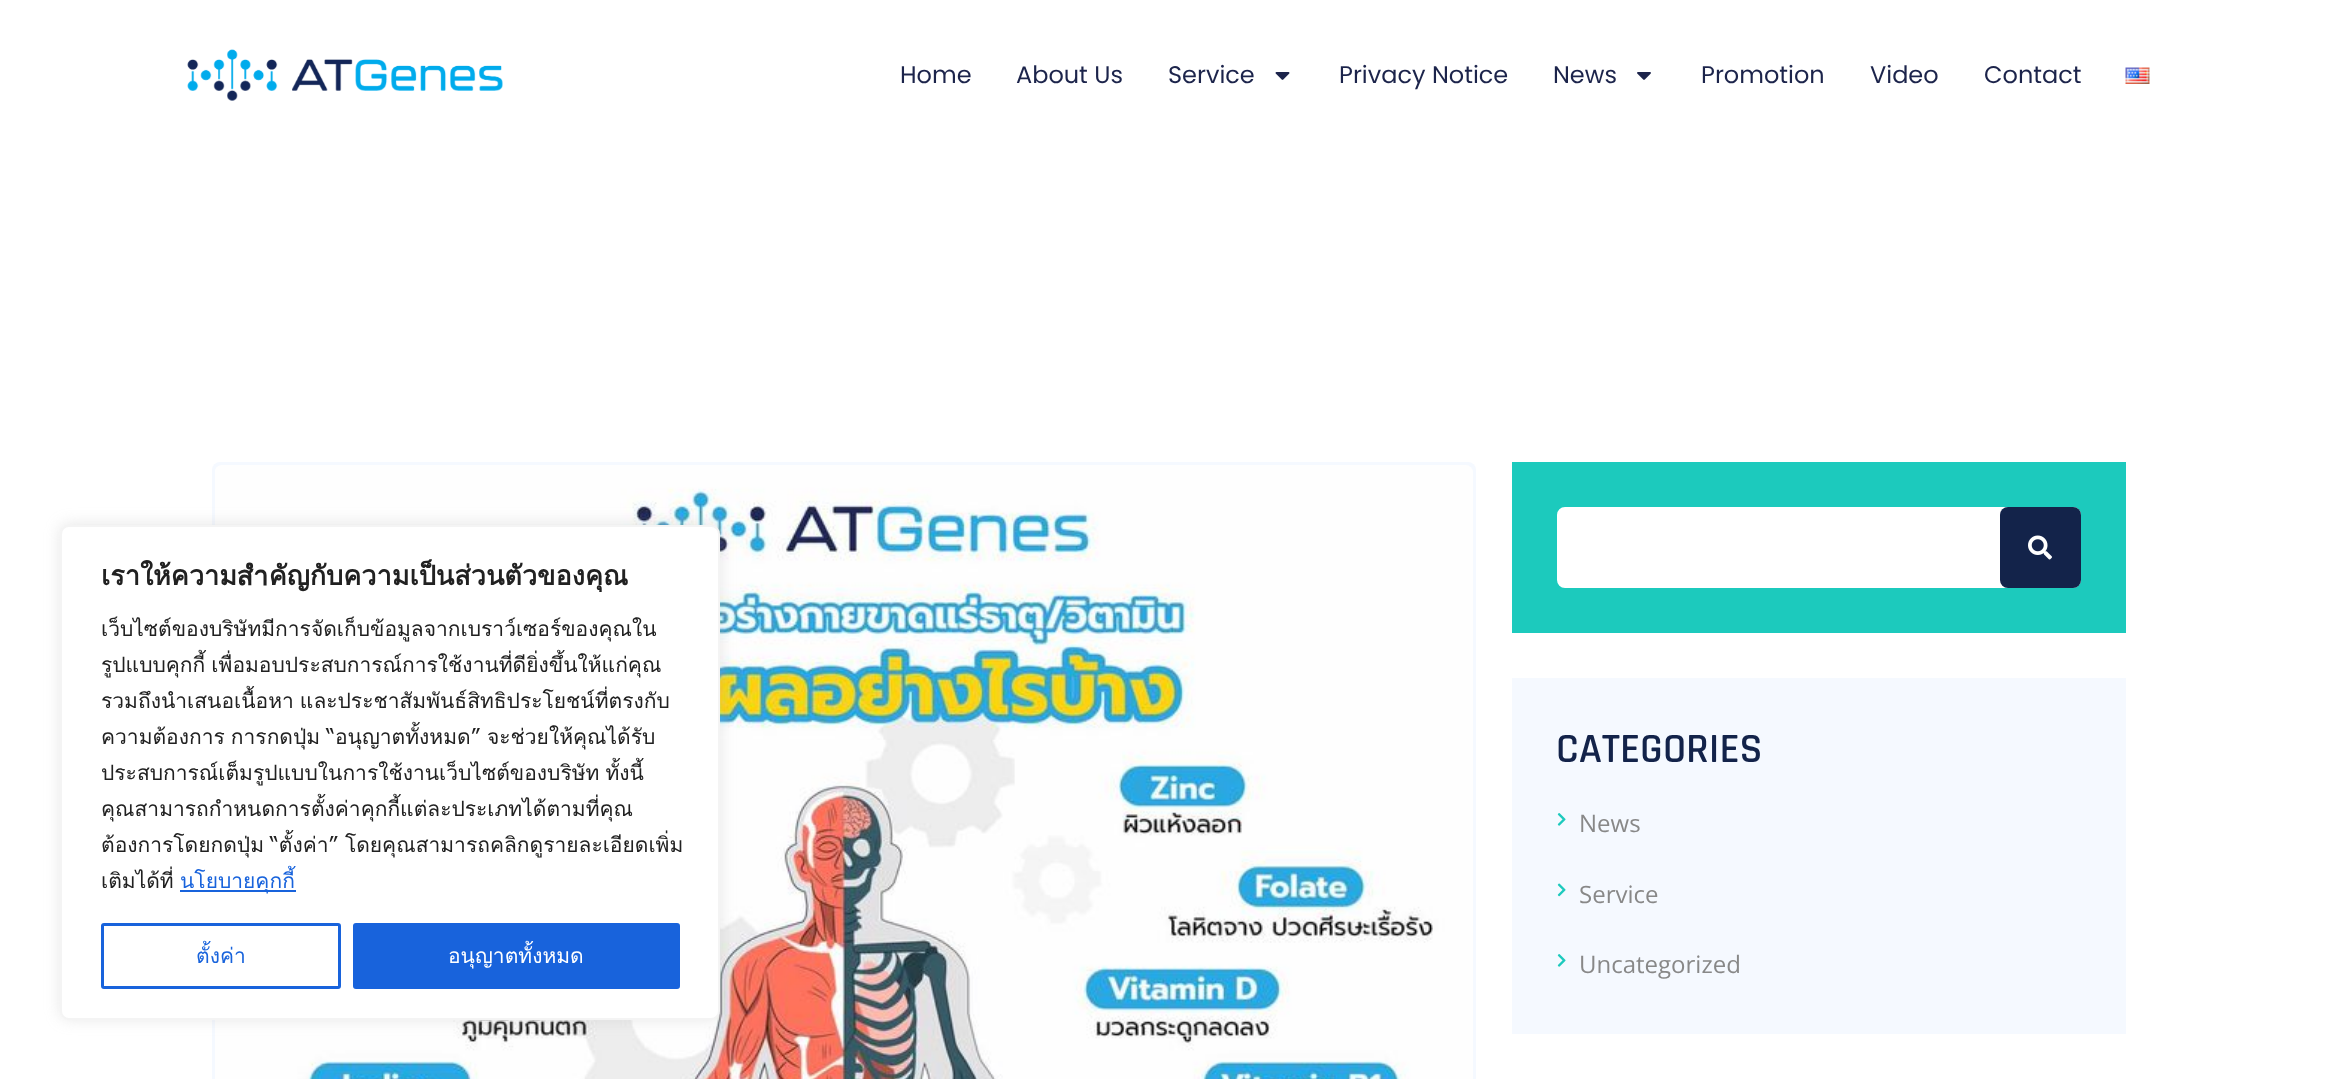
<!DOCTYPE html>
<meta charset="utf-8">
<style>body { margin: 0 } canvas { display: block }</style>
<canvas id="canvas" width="2337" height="1079"></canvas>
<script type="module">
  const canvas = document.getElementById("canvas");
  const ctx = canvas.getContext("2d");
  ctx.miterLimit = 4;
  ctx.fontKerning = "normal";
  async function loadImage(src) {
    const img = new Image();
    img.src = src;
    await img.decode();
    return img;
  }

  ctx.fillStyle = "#ffffff";
  ctx.fillRect(0, 0, 2337, 1079);
  ctx.drawImage(await loadImage("img1.png"), 187, 49, 316, 52);
  ctx.font = "24px Poppins";
  ctx.fillStyle = "#1c244b";
  ctx.fillText("Home", 900, 83);
  ctx.fillText("About Us", 1016, 83);
  ctx.fillText("Service", 1168, 83);
  ctx.drawImage(await loadImage("img2.png"), 1275, 72, 15, 8);
  ctx.fillText("Privacy Notice", 1339, 83);
  ctx.fillText("News", 1553, 83);
  ctx.drawImage(await loadImage("img3.png"), 1637, 72, 14, 8);
  ctx.fillText("Promotion", 1701, 83);
  ctx.fillText("Video", 1870, 83);
  ctx.fillText("Contact", 1984, 83);
  ctx.drawImage(await loadImage("img4.png"), 2125, 67, 25, 17);
  ctx.fillStyle = "#f5f9ff";
  ctx.beginPath();
  ctx.roundRect(212, 462, 1264, 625, 8);
  ctx.fill();
  ctx.drawImage(await loadImage("img5.png"), 215, 465, 1258, 614);
  ctx.fillStyle = "rgba(172, 171, 171, 0.3)";
  ctx.filter = "blur(7.5px)";
  ctx.beginPath();
  ctx.roundRect(60, 524, 660, 495, 9);
  ctx.fill();
  ctx.filter = "none";
  ctx.fillStyle = "#ffffff";
  ctx.beginPath();
  ctx.roundRect(61, 526, 658, 493, 8);
  ctx.fill();
  ctx.strokeStyle = "#f4f4f4";
  ctx.lineWidth = 2;
  ctx.stroke();
  ctx.font = "bold 27px Loma";
  ctx.fillStyle = "#212121";
  ctx.fillText("เราให้ความสำคัญกับความเป็นส่วนตัวของคุณ", 101, 585);
  ctx.font = "21px Loma";
  ctx.fillText("เว็บไซต์ของบริษัทมีการจัดเก็บข้อมูลจากเบราว์เซอร์ของคุณใน", 101, 636);
  ctx.wordSpacing = "-1px";
  ctx.fillText("รูปแบบคุกกี้ เพื่อมอบประสบการณ์การใช้งานที่ดียิ่งขึ้นให้แก่คุณ", 101, 672);
  ctx.fillText("รวมถึงนำเสนอเนื้อหา และประชาสัมพันธ์สิทธิประโยชน์ที่ตรงกับ", 101, 708);
  ctx.fillText("ความต้องการ การกดปุ่ม “อนุญาตทั้งหมด” จะช่วยให้คุณได้รับ", 101, 744);
  ctx.fillText("ประสบการณ์เต็มรูปแบบในการใช้งานเว็บไซต์ของบริษัท ทั้งนี้", 101, 780);
  ctx.wordSpacing = "0px";
  ctx.fillText("คุณสามารถกำหนดการตั้งค่าคุกกี้แต่ละประเภทได้ตามที่คุณ", 101, 816);
  ctx.wordSpacing = "-1px";
  ctx.fillText("ต้องการโดยกดปุ่ม “ตั้งค่า” โดยคุณสามารถคลิกดูรายละเอียดเพิ่ม", 101, 852);
  ctx.wordSpacing = "0px";
  ctx.fillText("เติมได้ที่", 101, 888);
  ctx.fillStyle = "#1863dc";
  ctx.fillRect(180, 890, 116, 2);
  ctx.fillText("นโยบายคุกกี้", 180, 888);
  ctx.beginPath();
  ctx.roundRect(102.5, 924.5, 237, 63, 1.5);
  ctx.strokeStyle = "#1863dc";
  ctx.lineWidth = 3;
  ctx.stroke();
  ctx.fillText("ตั้งค่า", 196, 963);
  ctx.beginPath();
  ctx.roundRect(354.5, 924.5, 324, 63, 1.5);
  ctx.fill();
  ctx.stroke();
  ctx.fillStyle = "#ffffff";
  ctx.fillText("อนุญาตทั้งหมด", 448, 963);
  ctx.fillStyle = "#1ccabd";
  ctx.fillRect(1512, 462, 614, 171);
  ctx.fillStyle = "#ffffff";
  ctx.beginPath();
  ctx.roundRect(1558, 508, 522, 79, 7);
  ctx.fill();
  ctx.strokeStyle = "#ffffff";
  ctx.lineWidth = 2;
  ctx.stroke();
  ctx.fillStyle = "#13234a";
  ctx.beginPath();
  ctx.roundRect(2000, 507, 81, 81, 8);
  ctx.fill();
  ctx.drawImage(await loadImage("img6.png"), 2028, 535, 24, 25);
  ctx.fillStyle = "#f5f9ff";
  ctx.fillRect(1512, 678, 614, 356);
  ctx.font = "600 42px Rajdhani";
  ctx.fillStyle = "#13234a";
  ctx.fillText("CATEGORIES", 1556, 762);
  ctx.drawImage(await loadImage("img7.png"), 1557, 813, 9, 13);
  ctx.font = "24px Open Sans";
  ctx.fillStyle = "#888888";
  ctx.fillText("News", 1579, 832);
  ctx.drawImage(await loadImage("img8.png"), 1557, 883, 9, 14);
  ctx.fillText("Service", 1579, 903);
  ctx.drawImage(await loadImage("img7.png"), 1557, 954, 9, 13);
  ctx.fillText("Uncategorized", 1579, 973);
</script>
